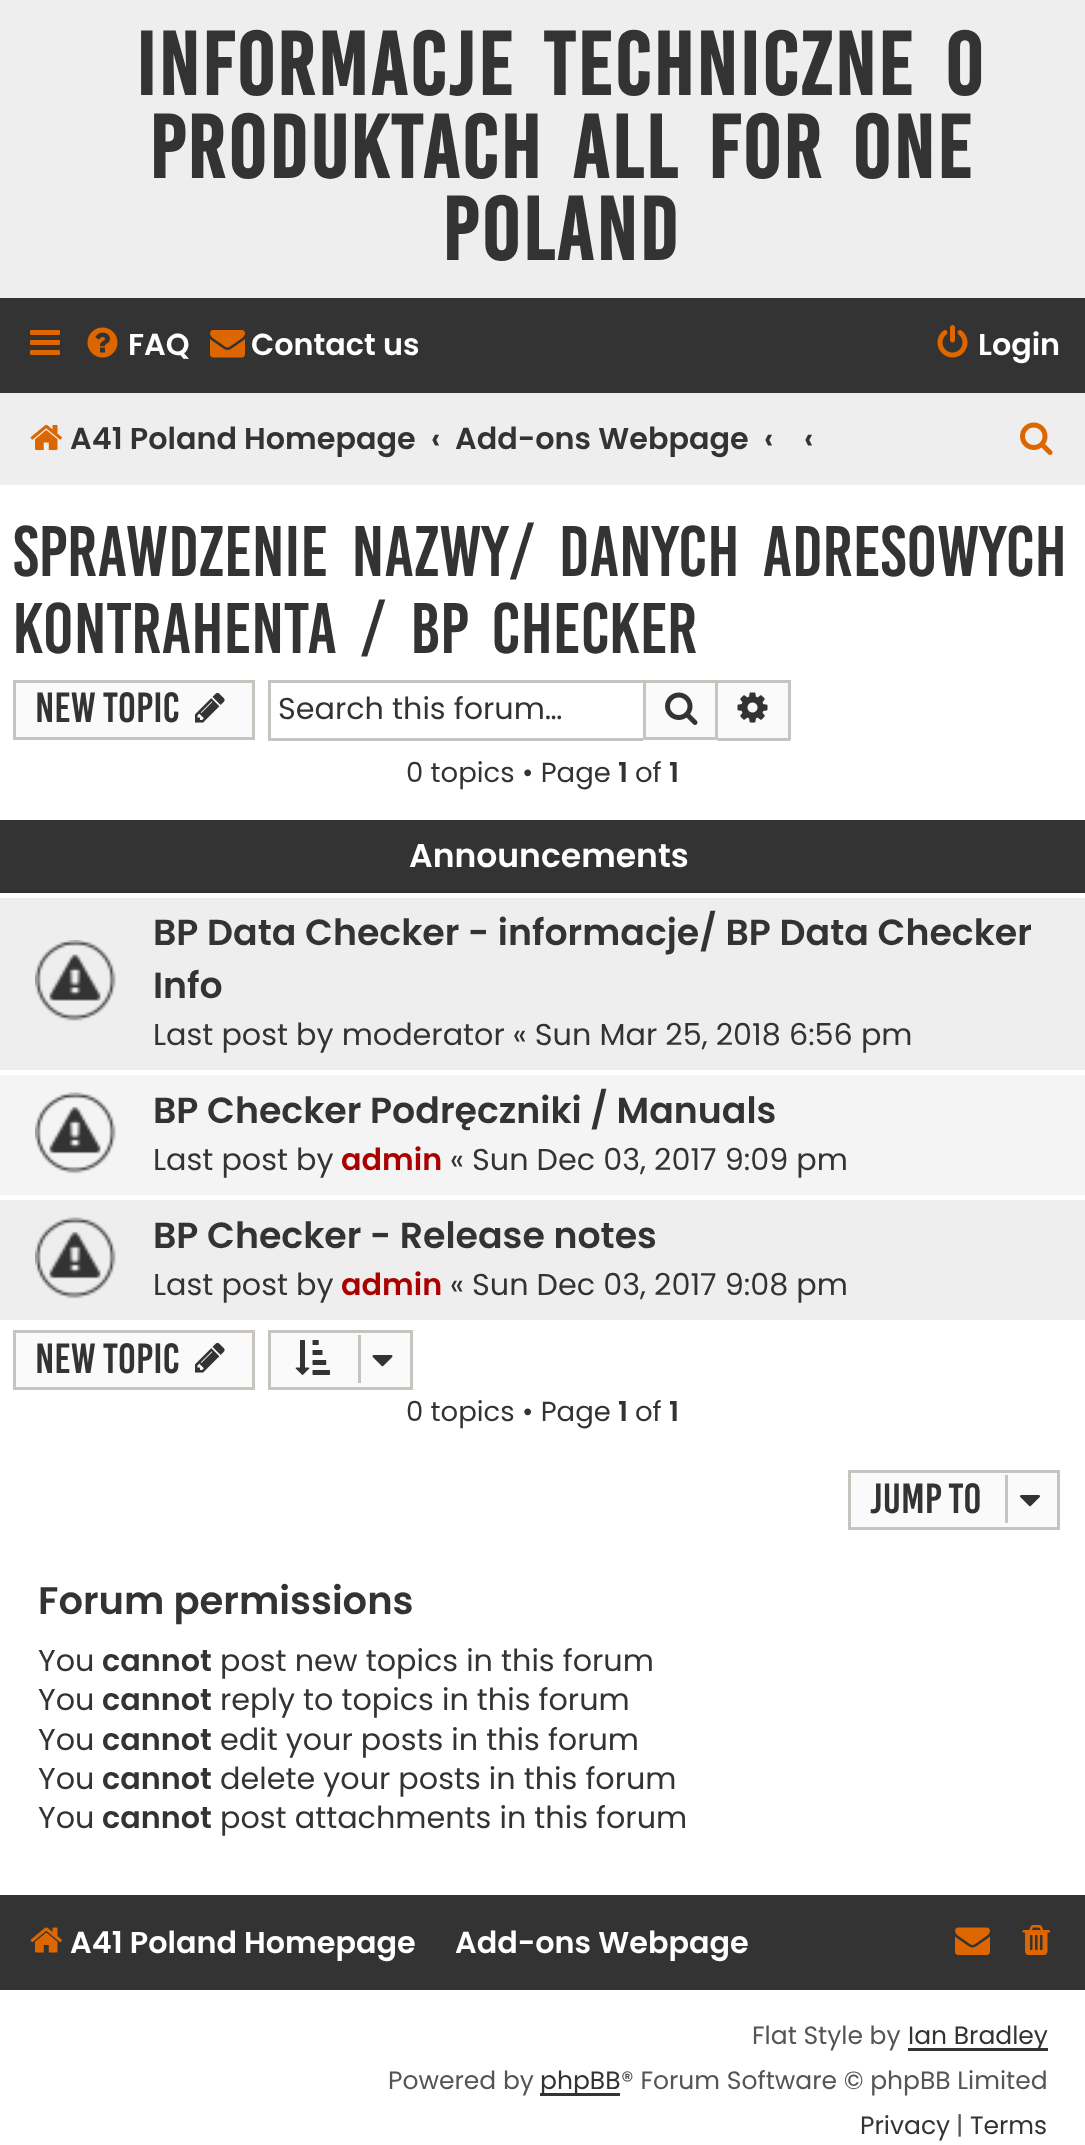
<!DOCTYPE html>
<meta charset="utf-8">
<style>body { margin: 0 } canvas { display: block }</style>
<canvas id="canvas" width="1085" height="2145"></canvas>
<script type="module">
  const canvas = document.getElementById("canvas");
  const ctx = canvas.getContext("2d");
  ctx.miterLimit = 4;
  ctx.fontKerning = "normal";
  async function loadImage(src) {
    const img = new Image();
    img.src = src;
    await img.decode();
    return img;
  }

  ctx.fillStyle = "#ffffff";
  ctx.fillRect(0, 0, 1085, 2145);
  ctx.fillStyle = "#eeeeee";
  ctx.fillRect(0, 0, 1085, 298);
  ctx.letterSpacing = "2.5px";
  ctx.wordSpacing = "10px";
  ctx.font = "bold 68.75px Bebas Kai";
  ctx.fillStyle = "#333333";
  ctx.fillText("Informacje techniczne o", 136, 95);
  ctx.fillText("produktach All for One", 149, 178);
  ctx.wordSpacing = "0px";
  ctx.fillText("Poland", 442, 260);
  ctx.fillRect(0, 298, 1085, 95);
  ctx.drawImage(await loadImage("img1.png"), 30, 330, 30, 25);
  ctx.drawImage(await loadImage("img2.png"), 87, 327, 31, 31);
  ctx.letterSpacing = "0px";
  ctx.font = "600 30.25px Poppins";
  ctx.fillStyle = "#ffffff";
  ctx.fillText("FAQ", 128, 355);
  ctx.drawImage(await loadImage("img3.png"), 210, 330, 35, 28);
  ctx.fillText("Contact us", 251, 355);
  ctx.drawImage(await loadImage("img4.png"), 937, 325, 31, 33);
  ctx.fillText("Login", 978, 355);
  ctx.fillStyle = "#eeeeee";
  ctx.fillRect(0, 393, 1085, 92);
  ctx.drawImage(await loadImage("img5.png"), 30, 424, 32, 26);
  ctx.fillStyle = "#333333";
  ctx.fillText("A41 Poland Homepage", 70, 449);
  ctx.fillText("‹", 431, 449);
  ctx.fillText("Add-ons Webpage", 455, 449);
  ctx.fillText("‹", 764, 449);
  ctx.fillText("‹", 804, 449);
  ctx.drawImage(await loadImage("img6.png"), 1020, 422, 33, 33);
  ctx.wordSpacing = "10px";
  ctx.font = "55px Bebas Kai";
  ctx.fillText("Sprawdzenie nazwy/ danych adresowych", 13, 576);
  ctx.fillText("kontrahenta / BP Checker", 13, 653);
  ctx.fillStyle = "#fafafa";
  ctx.beginPath();
  ctx.rect(14.5, 681.5, 239, 57);
  ctx.fill();
  ctx.strokeStyle = "#c7c3bf";
  ctx.lineWidth = 3;
  ctx.stroke();
  ctx.wordSpacing = "0px";
  ctx.font = "32.5px Bebas Kai";
  ctx.fillStyle = "#333333";
  ctx.fillText("New Topic", 35, 722);
  ctx.drawImage(await loadImage("img7.png"), 195, 692, 30, 31);
  ctx.fillStyle = "#c7c3bf";
  ctx.fillRect(268, 680, 375, 3);
  ctx.fillRect(268, 738, 375, 3);
  ctx.fillRect(268, 680, 3, 60);
  ctx.font = "30.25px Poppins";
  ctx.fillStyle = "#333333";
  ctx.fillText("Search this forum…", 278, 719);
  ctx.fillStyle = "#fafafa";
  ctx.beginPath();
  ctx.rect(644.5, 681.5, 72, 57);
  ctx.fill();
  ctx.stroke();
  ctx.drawImage(await loadImage("img8.png"), 665, 692, 33, 33);
  ctx.fillRect(718, 683, 70, 55);
  ctx.fillStyle = "#c7c3bf";
  ctx.fillRect(718, 680, 72, 3);
  ctx.fillRect(788, 680, 3, 60);
  ctx.fillRect(718, 738, 72, 3);
  ctx.drawImage(await loadImage("img9.png"), 737, 692, 31, 31);
  ctx.font = "27.5px Poppins";
  ctx.fillStyle = "#333333";
  ctx.fillText("0 topics • Page", 406, 782);
  ctx.font = "600 27.5px Poppins";
  ctx.fillText("1", 618, 782);
  ctx.font = "27.5px Poppins";
  ctx.fillText("of", 635, 782);
  ctx.font = "600 27.5px Poppins";
  ctx.fillText("1", 669, 782);
  ctx.fillRect(0, 820, 1085, 73);
  ctx.font = "600 33px Poppins";
  ctx.fillStyle = "#ffffff";
  ctx.fillText("Announcements", 409, 867);
  ctx.fillStyle = "#eeeeee";
  ctx.fillRect(0, 898, 1085, 172);
  ctx.drawImage(await loadImage("img10.png"), 35, 940, 81, 81);
  ctx.font = "600 36.3px Poppins";
  ctx.fillStyle = "#333333";
  ctx.fillText("BP Data Checker - informacje/ BP Data Checker", 153, 945);
  ctx.fillText("Info", 153, 998);
  ctx.font = "30.25px Poppins";
  ctx.fillText("Last post by moderator « Sun Mar 25, 2018 6:56 pm", 153, 1045);
  ctx.fillStyle = "#f4f4f4";
  ctx.fillRect(0, 1075, 1085, 120);
  ctx.drawImage(await loadImage("img11.png"), 35, 1092, 81, 82);
  ctx.font = "600 36.3px Poppins";
  ctx.fillStyle = "#333333";
  ctx.fillText("BP Checker Podręczniki / Manuals", 153, 1123);
  ctx.font = "30.25px Poppins";
  ctx.fillText("Last post by", 153, 1170);
  ctx.font = "600 30.25px Poppins";
  ctx.fillStyle = "#aa0000";
  ctx.fillText("admin", 341, 1170);
  ctx.font = "30.25px Poppins";
  ctx.fillStyle = "#333333";
  ctx.fillText("« Sun Dec 03, 2017 9:09 pm", 450, 1170);
  ctx.fillStyle = "#eeeeee";
  ctx.fillRect(0, 1200, 1085, 120);
  ctx.drawImage(await loadImage("img12.png"), 35, 1217, 81, 82);
  ctx.font = "600 36.3px Poppins";
  ctx.fillStyle = "#333333";
  ctx.fillText("BP Checker - Release notes", 153, 1248);
  ctx.font = "30.25px Poppins";
  ctx.fillText("Last post by", 153, 1295);
  ctx.font = "600 30.25px Poppins";
  ctx.fillStyle = "#aa0000";
  ctx.fillText("admin", 341, 1295);
  ctx.font = "30.25px Poppins";
  ctx.fillStyle = "#333333";
  ctx.fillText("« Sun Dec 03, 2017 9:08 pm", 450, 1295);
  ctx.fillStyle = "#fafafa";
  ctx.beginPath();
  ctx.rect(14.5, 1331.5, 239, 57);
  ctx.fill();
  ctx.stroke();
  ctx.font = "32.5px Bebas Kai";
  ctx.fillStyle = "#333333";
  ctx.fillText("New Topic", 35, 1373);
  ctx.drawImage(await loadImage("img7.png"), 195, 1342, 30, 31);
  ctx.fillStyle = "#fafafa";
  ctx.beginPath();
  ctx.rect(269.5, 1331.5, 142, 57);
  ctx.fill();
  ctx.stroke();
  ctx.drawImage(await loadImage("img13.png"), 295, 1340, 35, 35);
  ctx.fillStyle = "#c7c3bf";
  ctx.fillRect(358, 1335, 3, 48);
  ctx.drawImage(await loadImage("img14.png"), 372, 1355, 21, 12);
  ctx.font = "27.5px Poppins";
  ctx.fillStyle = "#333333";
  ctx.fillText("0 topics • Page", 406, 1421);
  ctx.font = "600 27.5px Poppins";
  ctx.fillText("1", 618, 1421);
  ctx.font = "27.5px Poppins";
  ctx.fillText("of", 635, 1421);
  ctx.font = "600 27.5px Poppins";
  ctx.fillText("1", 669, 1421);
  ctx.fillStyle = "#fafafa";
  ctx.beginPath();
  ctx.rect(849.5, 1471.5, 209, 57);
  ctx.fill();
  ctx.stroke();
  ctx.font = "32.5px Bebas Kai";
  ctx.fillStyle = "#333333";
  ctx.fillText("Jump to", 870, 1513);
  ctx.fillStyle = "#c7c3bf";
  ctx.fillRect(1005, 1475, 3, 48);
  ctx.drawImage(await loadImage("img15.png"), 1020, 1495, 20, 12);
  ctx.font = "600 38.5px Poppins";
  ctx.fillStyle = "#333333";
  ctx.fillText("Forum permissions", 38, 1614);
  ctx.font = "30.25px Poppins";
  ctx.fillText("You", 38, 1671);
  ctx.font = "600 30.25px Poppins";
  ctx.fillText("cannot", 102, 1671);
  ctx.font = "30.25px Poppins";
  ctx.fillText("post new topics in this forum", 220, 1671);
  ctx.fillText("You", 38, 1710);
  ctx.font = "600 30.25px Poppins";
  ctx.fillText("cannot", 102, 1710);
  ctx.font = "30.25px Poppins";
  ctx.fillText("reply to topics in this forum", 220, 1710);
  ctx.fillText("You", 38, 1750);
  ctx.font = "600 30.25px Poppins";
  ctx.fillText("cannot", 102, 1750);
  ctx.font = "30.25px Poppins";
  ctx.fillText("edit your posts in this forum", 220, 1750);
  ctx.fillText("You", 38, 1789);
  ctx.font = "600 30.25px Poppins";
  ctx.fillText("cannot", 102, 1789);
  ctx.font = "30.25px Poppins";
  ctx.fillText("delete your posts in this forum", 220, 1789);
  ctx.fillText("You", 38, 1828);
  ctx.font = "600 30.25px Poppins";
  ctx.fillText("cannot", 102, 1828);
  ctx.font = "30.25px Poppins";
  ctx.fillText("post attachments in this forum", 220, 1828);
  ctx.fillRect(0, 1895, 1085, 95);
  ctx.drawImage(await loadImage("img16.png"), 30, 1927, 32, 26);
  ctx.font = "600 30.25px Poppins";
  ctx.fillStyle = "#ffffff";
  ctx.fillText("A41 Poland Homepage", 70, 1953);
  ctx.fillText("Add-ons Webpage", 455, 1953);
  ctx.drawImage(await loadImage("img17.png"), 955, 1927, 35, 28);
  ctx.drawImage(await loadImage("img18.png"), 1022, 1925, 28, 30);
  ctx.font = "25px Poppins";
  ctx.fillStyle = "#555555";
  ctx.fillText("Flat Style by", 752, 2044);
  ctx.fillStyle = "#333333";
  ctx.fillRect(908, 2048, 140, 3);
  ctx.fillText("Ian Bradley", 908, 2044);
  ctx.fillStyle = "#555555";
  ctx.fillText("Powered by", 388, 2089);
  ctx.fillStyle = "#333333";
  ctx.fillRect(540, 2093, 80, 3);
  ctx.fillText("phpBB", 540, 2089);
  ctx.fillStyle = "#555555";
  ctx.fillText("® Forum Software © phpBB Limited", 621, 2089);
  ctx.fillStyle = "#333333";
  ctx.fillText("Privacy", 860, 2134);
  ctx.fillStyle = "#555555";
  ctx.fillText("|", 956, 2134);
  ctx.fillStyle = "#333333";
  ctx.fillText("Terms", 970, 2134);
</script>
